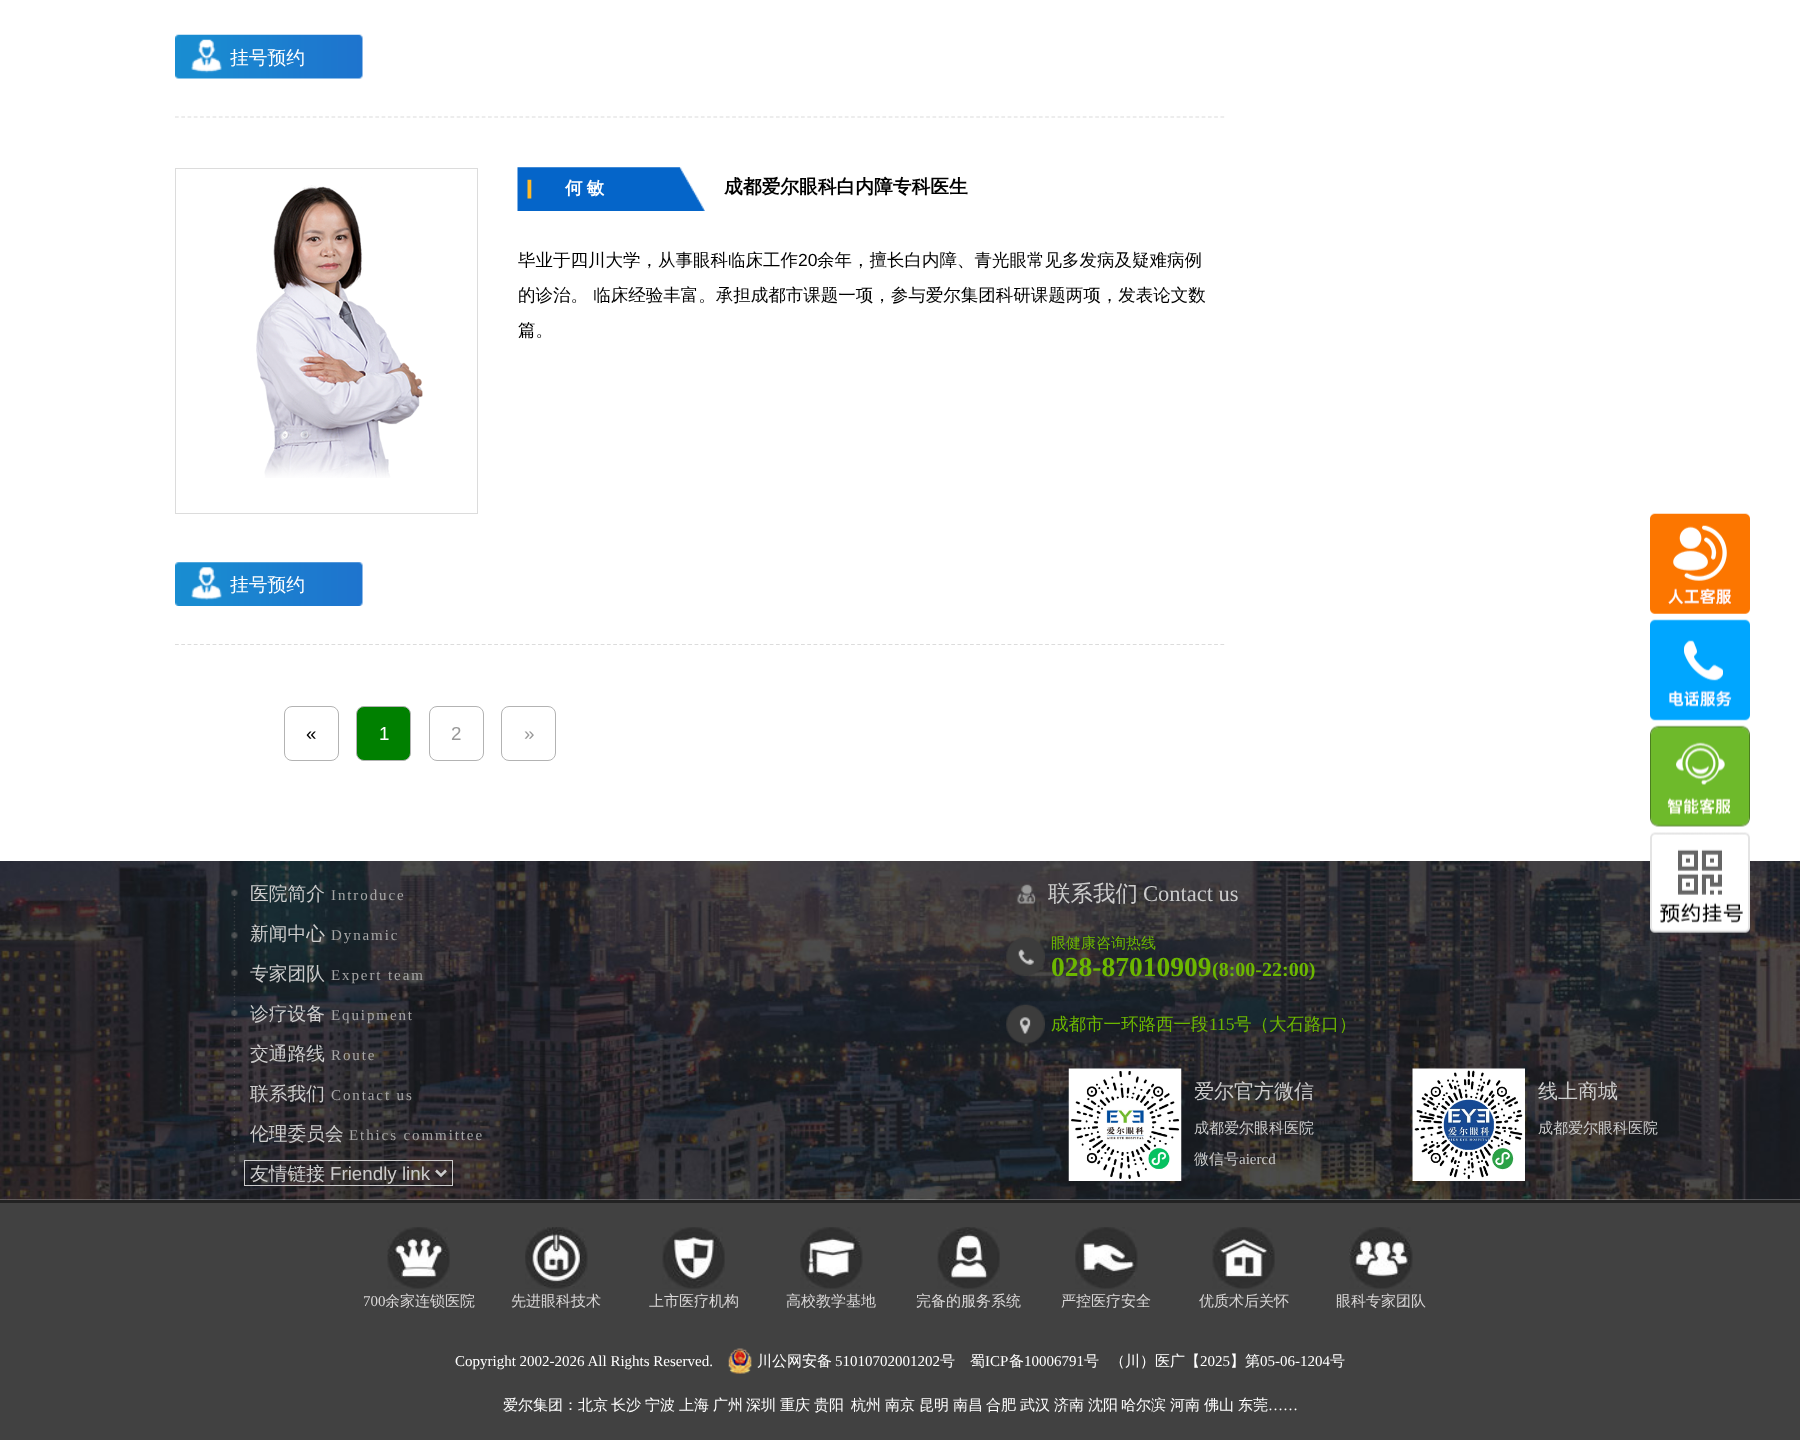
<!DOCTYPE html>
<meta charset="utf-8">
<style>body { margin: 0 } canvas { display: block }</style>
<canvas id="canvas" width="1800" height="1440"></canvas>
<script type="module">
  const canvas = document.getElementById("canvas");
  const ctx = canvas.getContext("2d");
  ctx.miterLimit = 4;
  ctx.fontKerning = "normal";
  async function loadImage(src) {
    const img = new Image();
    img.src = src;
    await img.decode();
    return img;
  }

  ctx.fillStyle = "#ffffff";
  ctx.fillRect(0, 0, 1800, 1440);
  ctx.beginPath();
  ctx.moveTo(175, 117);
  ctx.lineTo(1225, 117);
  ctx.strokeStyle = "#dcdcdc";
  ctx.lineWidth = 1.2;
  ctx.setLineDash([3.75, 2.51]);
  ctx.stroke();
  ctx.drawImage(await loadImage("img1.png"), 175, 34, 188, 45);
  ctx.font = "500 18.75px WenQuanYi Zen Hei";
  ctx.fillText("挂号预约", 230, 64);
  ctx.beginPath();
  ctx.moveTo(175, 644.5);
  ctx.lineTo(1225, 644.5);
  ctx.stroke();
  ctx.lineWidth = 1;
  ctx.setLineDash([]);
  ctx.strokeRect(175.5, 168.5, 302, 345);
  ctx.drawImage(await loadImage("img2.png"), 256, 185, 167, 293);
  ctx.drawImage(await loadImage("img3.png"), 517, 167, 188, 44);
  ctx.letterSpacing = "4px";
  ctx.font = "bold 17.5px WenQuanYi Zen Hei";
  ctx.fillText("何敏", 565, 194);
  ctx.letterSpacing = "0px";
  ctx.font = "bold 18.75px WenQuanYi Zen Hei";
  ctx.fillStyle = "#000000";
  ctx.fillText("成都爱尔眼科白内障专科医生", 724, 193);
  ctx.font = "500 17.5px WenQuanYi Zen Hei";
  ctx.fillText("毕业于四川大学，从事眼科临床工作", 518, 266);
  ctx.font = "17.5px Liberation Sans";
  ctx.fillText("20", 798, 266);
  ctx.font = "500 17.5px WenQuanYi Zen Hei";
  ctx.fillText("余年，擅长白内障、青光眼常见多发病及疑难病例", 817, 266);
  ctx.fillText("的诊治。 临床经验丰富。承担成都市课题一项，参与爱尔集团科研课题两项，发表论文数", 518, 301);
  ctx.fillText("篇。", 518, 336);
  ctx.drawImage(await loadImage("img4.png"), 175, 562, 188, 44);
  ctx.font = "500 18.75px WenQuanYi Zen Hei";
  ctx.fillStyle = "#ffffff";
  ctx.fillText("挂号预约", 230, 591);
  ctx.beginPath();
  ctx.roundRect(284.5, 706.5, 54, 54, 7.5);
  ctx.strokeStyle = "#b3b3b3";
  ctx.stroke();
  ctx.font = "18.75px Liberation Sans";
  ctx.fillStyle = "#000000";
  ctx.fillText("«", 306, 740);
  ctx.fillStyle = "#008000";
  ctx.beginPath();
  ctx.roundRect(356.5, 706.5, 54, 54, 7.5);
  ctx.fill();
  ctx.stroke();
  ctx.fillStyle = "#ffffff";
  ctx.fillText("1", 379, 740);
  ctx.beginPath();
  ctx.roundRect(429.5, 706.5, 54, 54, 7.5);
  ctx.stroke();
  ctx.fillStyle = "#999999";
  ctx.fillText("2", 451, 740);
  ctx.beginPath();
  ctx.roundRect(501.5, 706.5, 54, 54, 7.5);
  ctx.stroke();
  ctx.fillText("»", 524, 740);
  ctx.drawImage(await loadImage("img5.png"), 1650, 513, 100, 101);
  ctx.drawImage(await loadImage("img6.png"), 1650, 619, 100, 102);
  ctx.drawImage(await loadImage("img7.png"), 1650, 725, 100, 102);
  ctx.drawImage(await loadImage("img9.png"), 0, 861, 1800, 339);
  ctx.drawImage(await loadImage("img8.png"), 1650, 832, 100, 101);
  ctx.drawImage(await loadImage("img10.png"), 231, 889, 7, 288);
  ctx.font = "500 18.75px WenQuanYi Zen Hei";
  ctx.fillStyle = "#cccccc";
  ctx.fillText("医院简介", 250, 900);
  ctx.letterSpacing = "1.9px";
  ctx.font = "15px Liberation Serif";
  ctx.fillStyle = "#a7a7a7";
  ctx.fillText("Introduce", 331, 900);
  ctx.letterSpacing = "0px";
  ctx.font = "500 18.75px WenQuanYi Zen Hei";
  ctx.fillStyle = "#cccccc";
  ctx.fillText("新闻中心", 250, 940);
  ctx.letterSpacing = "1.9px";
  ctx.font = "15px Liberation Serif";
  ctx.fillStyle = "#a7a7a7";
  ctx.fillText("Dynamic", 331, 940);
  ctx.letterSpacing = "0px";
  ctx.font = "500 18.75px WenQuanYi Zen Hei";
  ctx.fillStyle = "#cccccc";
  ctx.fillText("专家团队", 250, 980);
  ctx.letterSpacing = "1.9px";
  ctx.font = "15px Liberation Serif";
  ctx.fillStyle = "#a7a7a7";
  ctx.fillText("Expert team", 331, 980);
  ctx.letterSpacing = "0px";
  ctx.font = "500 18.75px WenQuanYi Zen Hei";
  ctx.fillStyle = "#cccccc";
  ctx.fillText("诊疗设备", 250, 1020);
  ctx.letterSpacing = "1.9px";
  ctx.font = "15px Liberation Serif";
  ctx.fillStyle = "#a7a7a7";
  ctx.fillText("Equipment", 331, 1020);
  ctx.letterSpacing = "0px";
  ctx.font = "500 18.75px WenQuanYi Zen Hei";
  ctx.fillStyle = "#cccccc";
  ctx.fillText("交通路线", 250, 1060);
  ctx.letterSpacing = "1.9px";
  ctx.font = "15px Liberation Serif";
  ctx.fillStyle = "#a7a7a7";
  ctx.fillText("Route", 331, 1060);
  ctx.letterSpacing = "0px";
  ctx.font = "500 18.75px WenQuanYi Zen Hei";
  ctx.fillStyle = "#cccccc";
  ctx.fillText("联系我们", 250, 1100);
  ctx.letterSpacing = "1.9px";
  ctx.font = "15px Liberation Serif";
  ctx.fillStyle = "#a7a7a7";
  ctx.fillText("Contact us", 331, 1100);
  ctx.letterSpacing = "0px";
  ctx.font = "500 18.75px WenQuanYi Zen Hei";
  ctx.fillStyle = "#cccccc";
  ctx.fillText("伦理委员会", 250, 1140);
  ctx.letterSpacing = "1.9px";
  ctx.font = "15px Liberation Serif";
  ctx.fillStyle = "#a7a7a7";
  ctx.fillText("Ethics committee", 349, 1140);
  ctx.strokeStyle = "#cccccc";
  ctx.strokeRect(244.5, 1160.5, 208, 25);
  ctx.beginPath();
  ctx.moveTo(436, 1170.5);
  ctx.lineTo(441, 1175.5);
  ctx.lineTo(446, 1170.5);
  ctx.lineWidth = 2.5;
  ctx.stroke();
  ctx.letterSpacing = "0px";
  ctx.font = "500 18.75px WenQuanYi Zen Hei";
  ctx.fillStyle = "#cccccc";
  ctx.fillText("友情链接", 250, 1180);
  ctx.font = "18.75px Liberation Sans";
  ctx.fillText("Friendly link", 330, 1180);
  ctx.drawImage(await loadImage("img11.png"), 1017, 884, 19, 20);
  ctx.font = "500 22.5px WenQuanYi Zen Hei";
  ctx.fillText("联系我们", 1048, 901);
  ctx.font = "22.5px Liberation Serif";
  ctx.fillText("Contact us", 1143, 901);
  ctx.drawImage(await loadImage("img12.png"), 1006, 937, 39, 39);
  ctx.font = "500 15px WenQuanYi Zen Hei";
  ctx.fillStyle = "#6cb700";
  ctx.fillText("眼健康咨询热线", 1051, 948);
  ctx.font = "bold 27.5px Liberation Serif";
  ctx.fillText("028-87010909", 1051, 976);
  ctx.font = "bold 20px Liberation Serif";
  ctx.fillText("(8:00-22:00)", 1212, 976);
  ctx.drawImage(await loadImage("img13.png"), 1006, 1004, 39, 40);
  ctx.font = "500 17.5px WenQuanYi Zen Hei";
  ctx.fillText("成都市一环路西一段", 1051, 1030);
  ctx.font = "17.5px Liberation Serif";
  ctx.fillText("115", 1209, 1030);
  ctx.font = "500 17.5px WenQuanYi Zen Hei";
  ctx.fillText("号（大石路口）", 1234, 1030);
  ctx.drawImage(await loadImage("img14.png"), 1068, 1068, 114, 113);
  ctx.font = "500 20px WenQuanYi Zen Hei";
  ctx.fillStyle = "#cccccc";
  ctx.fillText("爱尔官方微信", 1194, 1098);
  ctx.font = "500 15px WenQuanYi Zen Hei";
  ctx.fillText("成都爱尔眼科医院", 1194, 1133);
  ctx.fillText("微信号", 1194, 1164);
  ctx.font = "15px Liberation Serif";
  ctx.fillText("aiercd", 1239, 1164);
  ctx.drawImage(await loadImage("img15.png"), 1412, 1068, 113, 113);
  ctx.font = "500 20px WenQuanYi Zen Hei";
  ctx.fillText("线上商城", 1538, 1098);
  ctx.font = "500 15px WenQuanYi Zen Hei";
  ctx.fillText("成都爱尔眼科医院", 1538, 1133);
  ctx.fillStyle = "#414141";
  ctx.fillRect(0, 1203, 1800, 237);
  ctx.fillStyle = "#222222";
  ctx.fillRect(0, 1200, 1800, 3);
  ctx.drawImage(await loadImage("img16.png"), 387, 1227, 63, 62);
  ctx.font = "15px Liberation Serif";
  ctx.fillStyle = "#d9d7d7";
  ctx.fillText("700", 363, 1306);
  ctx.font = "500 15px WenQuanYi Zen Hei";
  ctx.fillText("余家连锁医院", 385, 1306);
  ctx.drawImage(await loadImage("img17.png"), 525, 1227, 63, 62);
  ctx.fillText("先进眼科技术", 511, 1306);
  ctx.drawImage(await loadImage("img18.png"), 662, 1227, 63, 62);
  ctx.fillText("上市医疗机构", 649, 1306);
  ctx.drawImage(await loadImage("img19.png"), 800, 1227, 63, 62);
  ctx.fillText("高校教学基地", 786, 1306);
  ctx.drawImage(await loadImage("img20.png"), 937, 1227, 63, 62);
  ctx.fillText("完备的服务系统", 916, 1306);
  ctx.drawImage(await loadImage("img21.png"), 1075, 1227, 63, 62);
  ctx.fillText("严控医疗安全", 1061, 1306);
  ctx.drawImage(await loadImage("img22.png"), 1212, 1227, 63, 62);
  ctx.fillText("优质术后关怀", 1199, 1306);
  ctx.drawImage(await loadImage("img23.png"), 1349, 1227, 64, 62);
  ctx.fillText("眼科专家团队", 1336, 1306);
  ctx.font = "15px Liberation Serif";
  ctx.fillStyle = "#ffffff";
  ctx.fillText("Copyright 2002-2026 All Rights Reserved.", 455, 1366);
  ctx.drawImage(await loadImage("img24.png"), 728, 1348, 24, 26);
  ctx.font = "500 15px WenQuanYi Zen Hei";
  ctx.fillText("川公网安备", 757, 1366);
  ctx.font = "15px Liberation Serif";
  ctx.fillText("51010702001202", 835, 1366);
  ctx.font = "500 15px WenQuanYi Zen Hei";
  ctx.fillText("号", 940, 1366);
  ctx.fillText("蜀", 970, 1366);
  ctx.font = "15px Liberation Serif";
  ctx.fillText("ICP", 985, 1366);
  ctx.font = "500 15px WenQuanYi Zen Hei";
  ctx.fillText("备", 1009, 1366);
  ctx.font = "15px Liberation Serif";
  ctx.fillText("10006791", 1024, 1366);
  ctx.font = "500 15px WenQuanYi Zen Hei";
  ctx.fillText("号", 1084, 1366);
  ctx.fillText("（川）医广【", 1110, 1366);
  ctx.font = "15px Liberation Serif";
  ctx.fillText("2025", 1200, 1366);
  ctx.font = "500 15px WenQuanYi Zen Hei";
  ctx.fillText("】第", 1230, 1366);
  ctx.font = "15px Liberation Serif";
  ctx.fillText("05-06-1204", 1260, 1366);
  ctx.font = "500 15px WenQuanYi Zen Hei";
  ctx.fillText("号", 1330, 1366);
  ctx.fillText("爱尔集团：北京", 503, 1410);
  ctx.fillText("长沙", 611, 1410);
  ctx.fillText("宁波", 645, 1410);
  ctx.fillText("上海", 679, 1410);
  ctx.fillText("广州", 713, 1410);
  ctx.fillText("深圳", 746, 1410);
  ctx.fillText("重庆", 780, 1410);
  ctx.fillText("贵阳", 814, 1410);
  ctx.fillText("杭州", 851, 1410);
  ctx.fillText("南京", 885, 1410);
  ctx.fillText("昆明", 919, 1410);
  ctx.fillText("南昌", 953, 1410);
  ctx.fillText("合肥", 986, 1410);
  ctx.fillText("武汉", 1020, 1410);
  ctx.fillText("济南", 1054, 1410);
  ctx.fillText("沈阳", 1088, 1410);
  ctx.fillText("哈尔滨", 1121, 1410);
  ctx.fillText("河南", 1170, 1410);
  ctx.fillText("佛山", 1204, 1410);
  ctx.fillText("东莞", 1238, 1410);
  ctx.font = "15px Liberation Serif";
  ctx.fillText("……", 1268, 1410);
</script>
